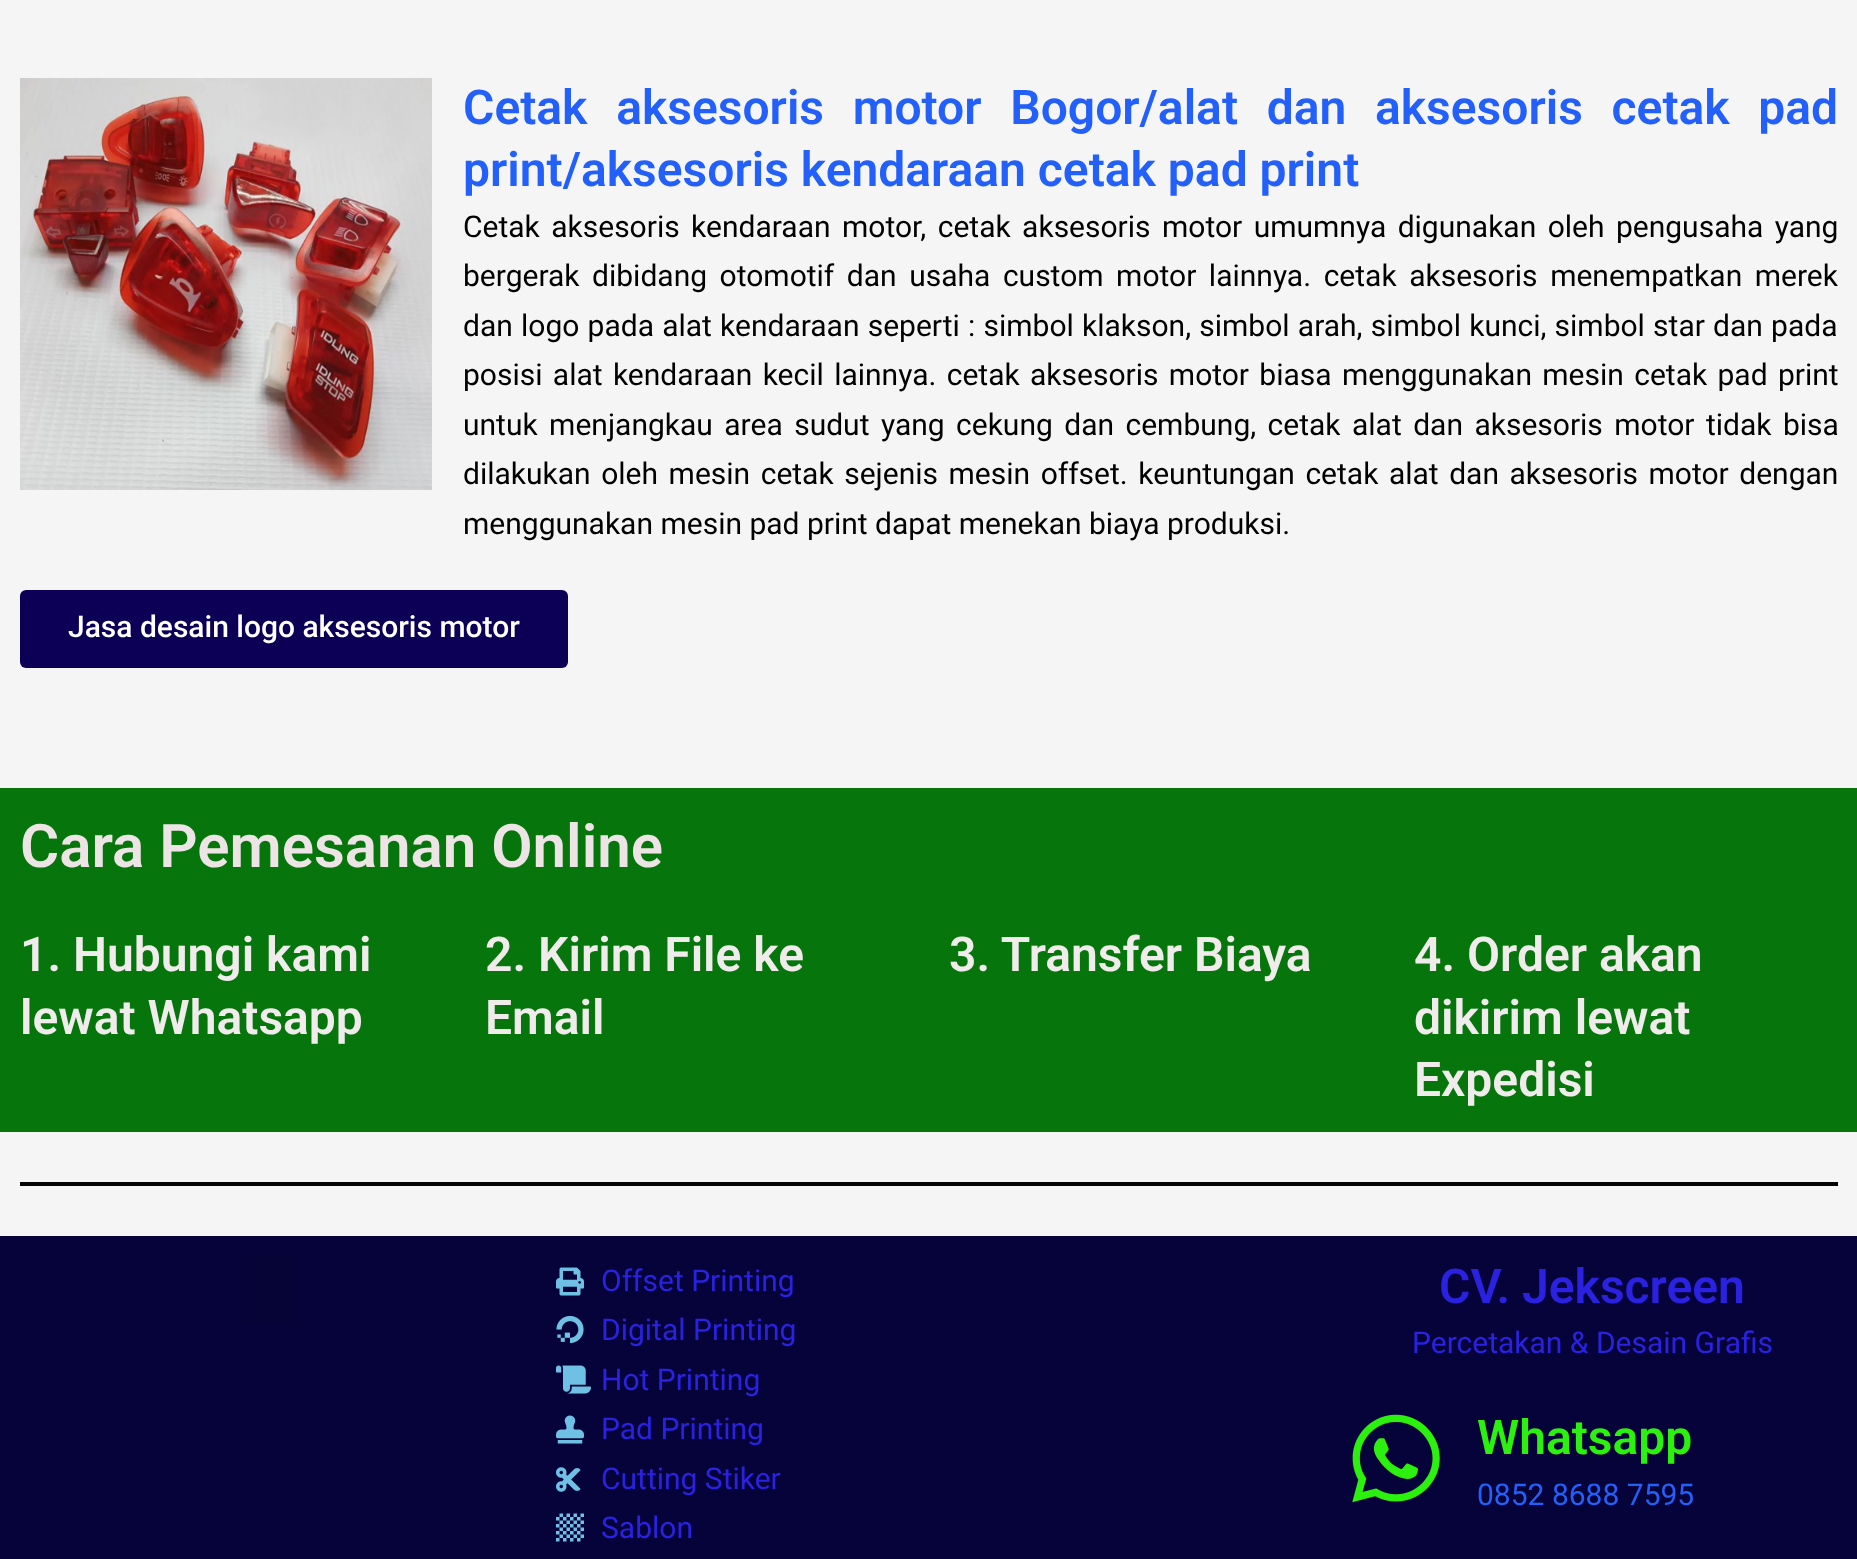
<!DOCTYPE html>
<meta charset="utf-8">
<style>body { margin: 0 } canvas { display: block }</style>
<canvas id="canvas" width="1857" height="1559"></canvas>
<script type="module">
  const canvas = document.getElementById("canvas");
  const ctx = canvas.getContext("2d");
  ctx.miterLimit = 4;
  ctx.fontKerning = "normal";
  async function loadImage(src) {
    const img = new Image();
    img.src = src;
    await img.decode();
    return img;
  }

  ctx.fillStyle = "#f5f5f5";
  ctx.fillRect(0, 0, 1857, 1559);
  ctx.drawImage(await loadImage("img1.png"), 20, 78, 412, 412);
  ctx.wordSpacing = "16.75px";
  ctx.font = "600 48px Roboto";
  ctx.fillStyle = "#2360f9";
  ctx.fillText("Cetak aksesoris motor Bogor/alat dan aksesoris cetak pad", 463, 124);
  ctx.wordSpacing = "0px";
  ctx.fillText("print/aksesoris kendaraan cetak pad print", 463, 186);
  ctx.wordSpacing = "4px";
  ctx.font = "30px Roboto";
  ctx.fillStyle = "#000000";
  ctx.fillText("Cetak aksesoris kendaraan motor, cetak aksesoris motor umumnya digunakan oleh pengusaha yang", 463, 237);
  ctx.wordSpacing = "5.1px";
  ctx.fillText("bergerak dibidang otomotif dan usaha custom motor lainnya. cetak aksesoris menempatkan merek", 463, 286);
  ctx.wordSpacing = "0.75px";
  ctx.fillText("dan logo pada alat kendaraan seperti : simbol klakson, simbol arah, simbol kunci, simbol star dan pada", 463, 336);
  ctx.wordSpacing = "2.9px";
  ctx.fillText("posisi alat kendaraan kecil lainnya. cetak aksesoris motor biasa menggunakan mesin cetak pad print", 463, 385);
  ctx.wordSpacing = "4px";
  ctx.fillText("untuk menjangkau area sudut yang cekung dan cembung, cetak alat dan aksesoris motor tidak bisa", 463, 435);
  ctx.wordSpacing = "3.1px";
  ctx.fillText("dilakukan oleh mesin cetak sejenis mesin offset. keuntungan cetak alat dan aksesoris motor dengan", 463, 484);
  ctx.wordSpacing = "0px";
  ctx.fillText("menggunakan mesin pad print dapat menekan biaya produksi.", 463, 534);
  ctx.fillStyle = "#0c0056";
  ctx.beginPath();
  ctx.roundRect(20, 590, 548, 78, 6);
  ctx.fill();
  ctx.font = "500 30px Roboto";
  ctx.fillStyle = "#ffffff";
  ctx.fillText("Jasa desain logo aksesoris motor", 68, 637);
  ctx.fillStyle = "#06750b";
  ctx.fillRect(0, 788, 1857, 344);
  ctx.font = "600 60px Roboto";
  ctx.fillStyle = "#ede5e5";
  ctx.fillText("Cara Pemesanan Online", 20, 867);
  ctx.font = "600 48px Roboto";
  ctx.fillStyle = "#f0ecec";
  ctx.fillText("1. Hubungi kami", 20, 971);
  ctx.fillText("lewat Whatsapp", 20, 1034);
  ctx.fillText("2. Kirim File ke", 485, 971);
  ctx.fillText("Email", 485, 1034);
  ctx.fillText("3. Transfer Biaya", 949, 971);
  ctx.fillText("4. Order akan", 1414, 971);
  ctx.fillText("dikirim lewat", 1414, 1034);
  ctx.fillText("Expedisi", 1414, 1096);
  ctx.fillStyle = "#050505";
  ctx.fillRect(20, 1182, 1818, 4);
  ctx.fillStyle = "#06033a";
  ctx.fillRect(0, 1236, 1857, 323);
  ctx.fillStyle = "#060337";
  ctx.beginPath();
  ctx.roundRect(240, 1256, 56, 66, 6);
  ctx.fill();
  ctx.drawImage(await loadImage("img2.png"), 556, 1267, 28, 29);
  ctx.font = "30px Roboto";
  ctx.fillStyle = "#2b21e1";
  ctx.fillText("Offset Printing", 601, 1291);
  ctx.drawImage(await loadImage("img3.png"), 556, 1315, 28, 29);
  ctx.fillText("Digital Printing", 601, 1340);
  ctx.drawImage(await loadImage("img4.png"), 556, 1365, 35, 29);
  ctx.fillText("Hot Printing", 601, 1390);
  ctx.drawImage(await loadImage("img5.png"), 556, 1415, 28, 29);
  ctx.fillText("Pad Printing", 601, 1439);
  ctx.drawImage(await loadImage("img6.png"), 556, 1467, 25, 25);
  ctx.fillText("Cutting Stiker", 601, 1489);
  ctx.drawImage(await loadImage("img7.png"), 556, 1513, 28, 29);
  ctx.fillText("Sablon", 601, 1538);
  ctx.font = "600 48px Roboto";
  ctx.fillText("CV. Jekscreen", 1439, 1303);
  ctx.font = "30px Roboto";
  ctx.fillText("Percetakan & Desain Grafis", 1412, 1353);
  ctx.drawImage(await loadImage("img8.png"), 1352, 1414, 88, 89);
  ctx.font = "600 48px Roboto";
  ctx.fillStyle = "#2cf00d";
  ctx.fillText("Whatsapp", 1477, 1454);
  ctx.font = "30px Roboto";
  ctx.fillStyle = "#2360f9";
  ctx.fillText("0852 8688 7595", 1477, 1505);
</script>
